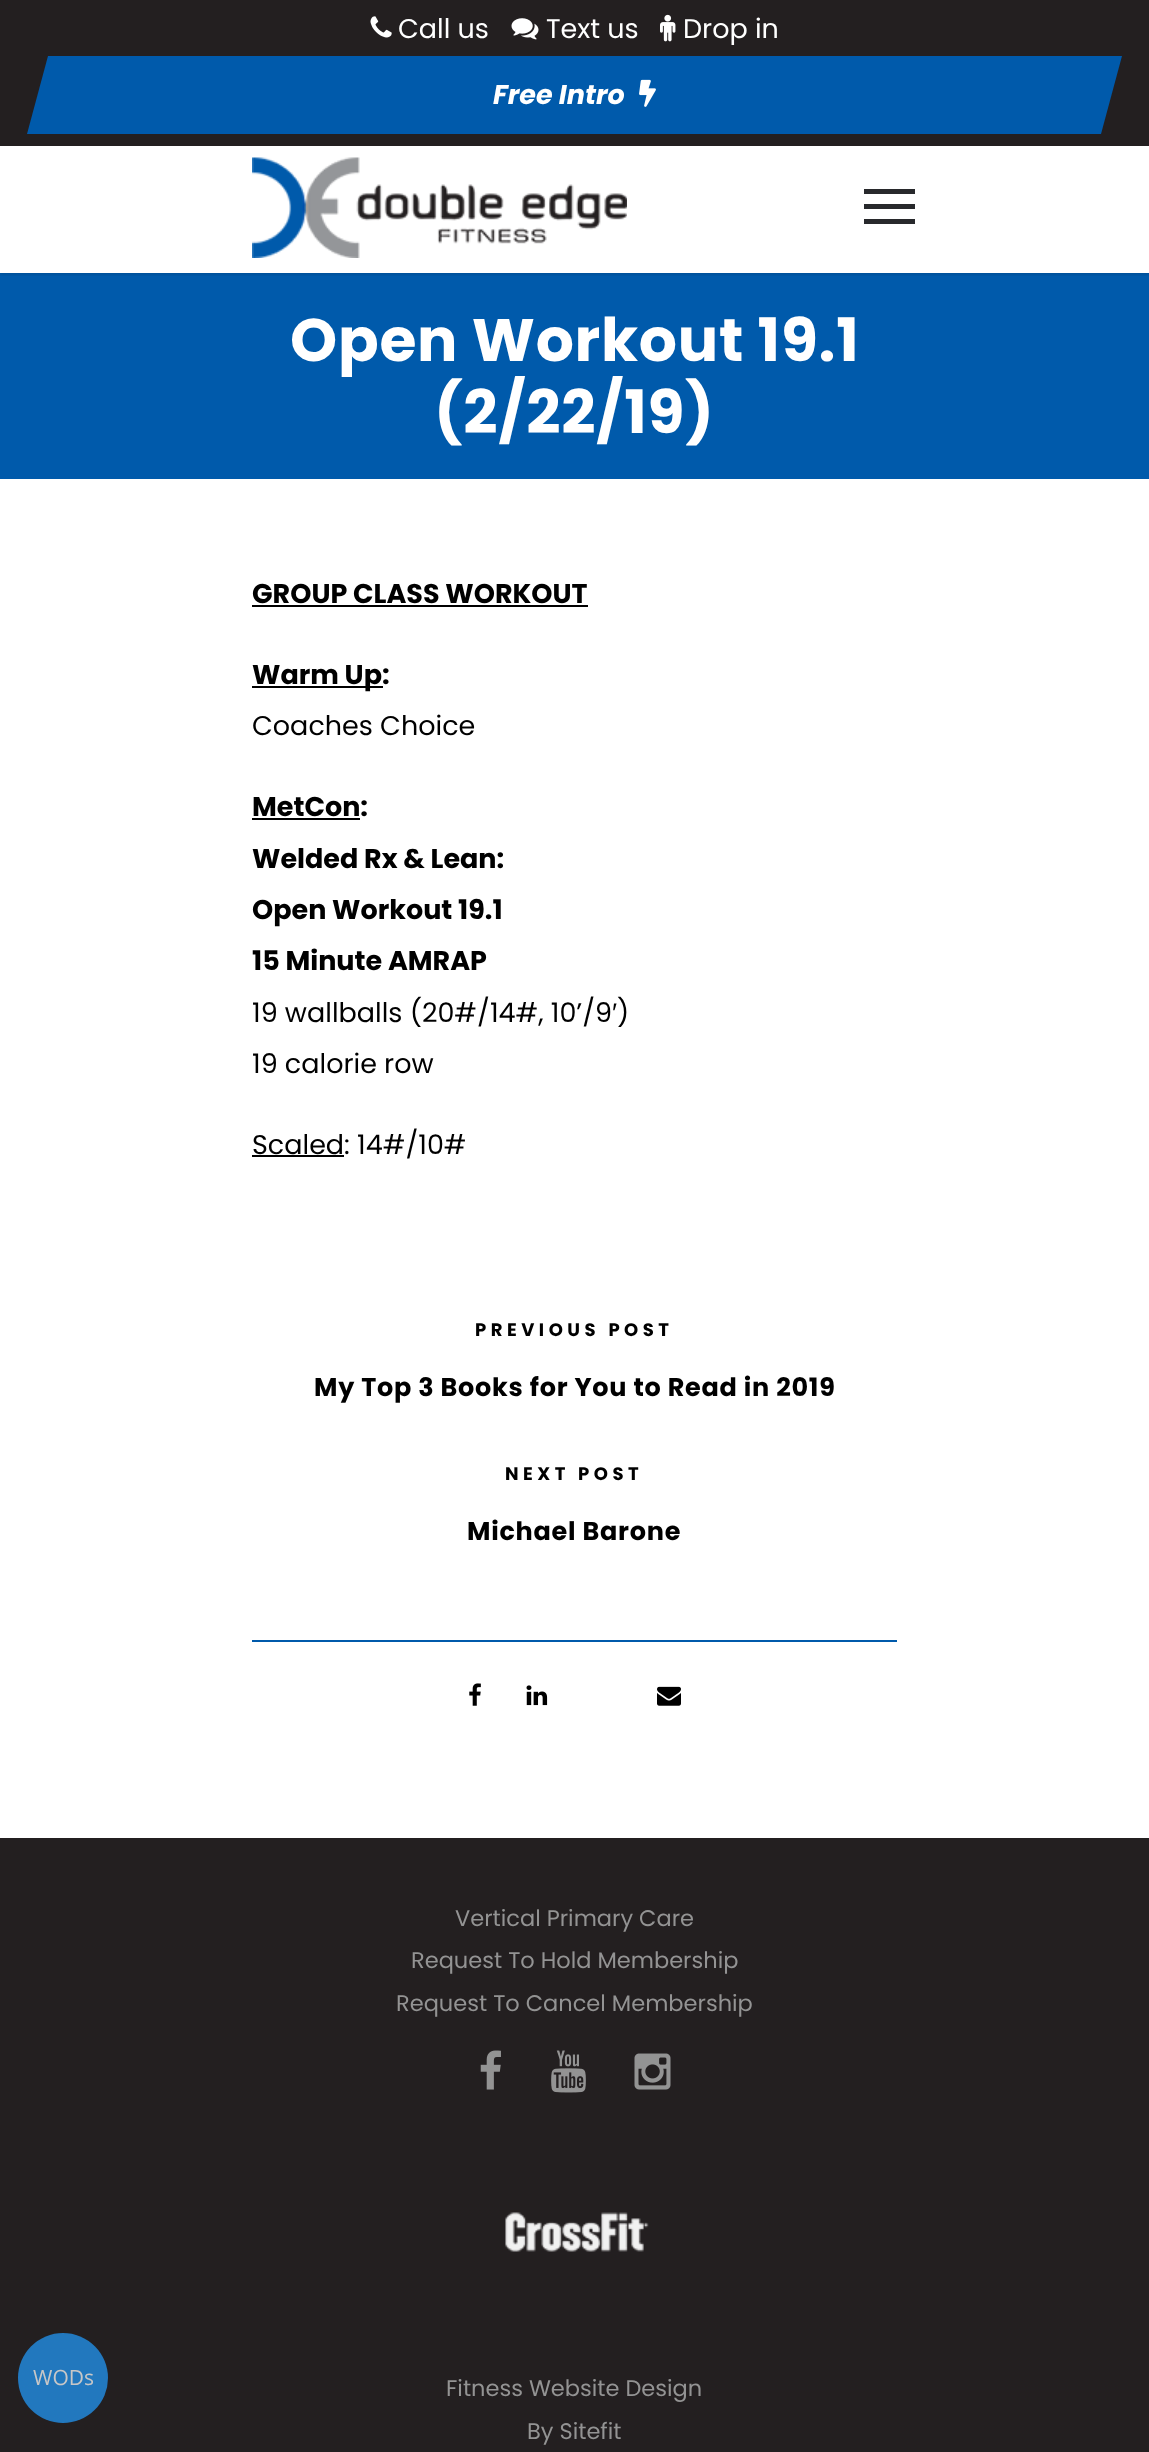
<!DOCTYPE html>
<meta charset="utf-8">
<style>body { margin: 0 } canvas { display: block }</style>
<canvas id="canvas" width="1149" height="2452"></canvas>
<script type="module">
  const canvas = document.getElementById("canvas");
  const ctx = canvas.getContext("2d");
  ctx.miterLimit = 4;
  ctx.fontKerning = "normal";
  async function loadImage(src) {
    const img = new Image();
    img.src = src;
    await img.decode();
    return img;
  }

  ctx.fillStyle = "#ffffff";
  ctx.fillRect(0, 0, 1149, 2452);
  ctx.fillStyle = "#005aab";
  ctx.fillRect(0, 273, 1149, 206);
  ctx.save();
  ctx.beginPath();
  ctx.rect(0, 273, 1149, 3);
  ctx.clip();
  ctx.fillStyle = "rgba(0, 0, 0, 0.1)";
  ctx.filter = "blur(1.5px)";
  ctx.beginPath();
  ctx.rect(0, 2, 1149, 273);
  ctx.fill();
  ctx.filter = "none";
  ctx.restore();
  ctx.drawImage(await loadImage("img1.png"), 252, 157, 375, 101);
  ctx.fillStyle = "#28292c";
  ctx.fillRect(864, 189, 51, 5);
  ctx.fillRect(864, 204, 51, 5);
  ctx.fillRect(864, 219, 51, 5);
  ctx.fillStyle = "#231f20";
  ctx.fillRect(0, 0, 1149, 146);
  ctx.drawImage(await loadImage("img2.png"), 370, 16, 22, 22);
  ctx.font = "27px Poppins";
  ctx.fillStyle = "#ffffff";
  ctx.fillText("Call us", 398, 38);
  ctx.drawImage(await loadImage("img3.png"), 511, 18, 28, 22);
  ctx.fillText("Text us", 546, 38);
  ctx.drawImage(await loadImage("img4.png"), 660, 14, 16, 28);
  ctx.fillText("Drop in", 683, 38);
  ctx.fillStyle = "#005aab";
  ctx.beginPath();
  ctx.moveTo(1122, 56);
  ctx.lineTo(1101, 134);
  ctx.lineTo(27, 134);
  ctx.lineTo(48, 56);
  ctx.closePath();
  ctx.fill();
  ctx.font = "italic bold 27px Poppins";
  ctx.fillStyle = "#ffffff";
  ctx.fillText("Free Intro", 493, 104);
  ctx.drawImage(await loadImage("img5.png"), 639, 79, 17, 28);
  ctx.fillStyle = "#231f20";
  ctx.fillRect(0, 1838, 1149, 614);
  ctx.fillStyle = "#2278be";
  ctx.beginPath();
  ctx.arc(63, 2378, 45, 0, Math.PI * 2);
  ctx.fill();
  ctx.font = "21px Open Sans";
  ctx.fillStyle = "#c8c7c7";
  ctx.fillText("WODs", 33, 2385);
  ctx.letterSpacing = "0.75px";
  ctx.font = "bold 60px Poppins";
  ctx.fillStyle = "#ffffff";
  ctx.fillText("Open Workout 19.1", 290, 361);
  ctx.fillText("(2/22/19)", 434, 433);
  ctx.letterSpacing = "0px";
  ctx.font = "bold 27px Poppins";
  ctx.fillStyle = "#000000";
  ctx.fillText("GROUP CLASS WORKOUT", 252, 603);
  ctx.fillRect(252, 605, 336, 2);
  ctx.fillRect(252, 686, 131, 2);
  ctx.fillText("Warm Up:", 252, 684);
  ctx.font = "27px Poppins";
  ctx.fillText("Coaches Choice", 252, 735);
  ctx.font = "bold 27px Poppins";
  ctx.fillText("MetCon:", 252, 816);
  ctx.fillRect(252, 818, 108, 2);
  ctx.fillText("Welded Rx & Lean:", 252, 868);
  ctx.fillText("Open Workout 19.1", 252, 919);
  ctx.fillText("15 Minute AMRAP", 252, 970);
  ctx.font = "27px Poppins";
  ctx.fillText("19 wallballs (20#/14#, 10’/9", 252, 1022);
  ctx.font = "27px Liberation Sans";
  ctx.fillText("′", 612, 1022);
  ctx.font = "27px Poppins";
  ctx.fillText(")", 617, 1022);
  ctx.fillText("19 calorie row", 252, 1073);
  ctx.fillRect(252, 1155, 92, 2);
  ctx.fillText("Scaled: 14#/10#", 252, 1154);
  ctx.letterSpacing = "4.5px";
  ctx.font = "bold 18px Poppins";
  ctx.fillText("PREVIOUS POST", 475, 1336);
  ctx.letterSpacing = "0.75px";
  ctx.font = "bold 25.5px Poppins";
  ctx.fillText("My Top 3 Books for You to Read in 2019", 314, 1396);
  ctx.letterSpacing = "4.5px";
  ctx.font = "bold 18px Poppins";
  ctx.fillText("NEXT POST", 505, 1480);
  ctx.letterSpacing = "0.75px";
  ctx.font = "bold 25.5px Poppins";
  ctx.fillText("Michael Barone", 467, 1540);
  ctx.fillStyle = "#005aab";
  ctx.fillRect(252, 1640, 645, 2);
  ctx.drawImage(await loadImage("img6.png"), 469, 1683, 12, 23);
  ctx.drawImage(await loadImage("img7.png"), 526, 1685, 22, 21);
  ctx.drawImage(await loadImage("img8.png"), 657, 1686, 24, 20);
  ctx.letterSpacing = "0px";
  ctx.font = "22.5px Poppins";
  ctx.fillStyle = "#939393";
  ctx.fillText("Vertical Primary Care", 455, 1926);
  ctx.fillText("Request To Hold Membership", 411, 1968);
  ctx.fillText("Request To Cancel Membership", 396, 2011);
  ctx.drawImage(await loadImage("img9.png"), 480, 2050, 21, 40);
  ctx.drawImage(await loadImage("img10.png"), 551, 2050, 35, 43);
  ctx.drawImage(await loadImage("img11.png"), 634, 2053, 37, 37);
  ctx.drawImage(await loadImage("img12.png"), 505, 2212, 144, 40);
  ctx.fillText("Fitness Website Design", 446, 2396);
  ctx.fillText("By Sitefit", 527, 2439);
</script>
